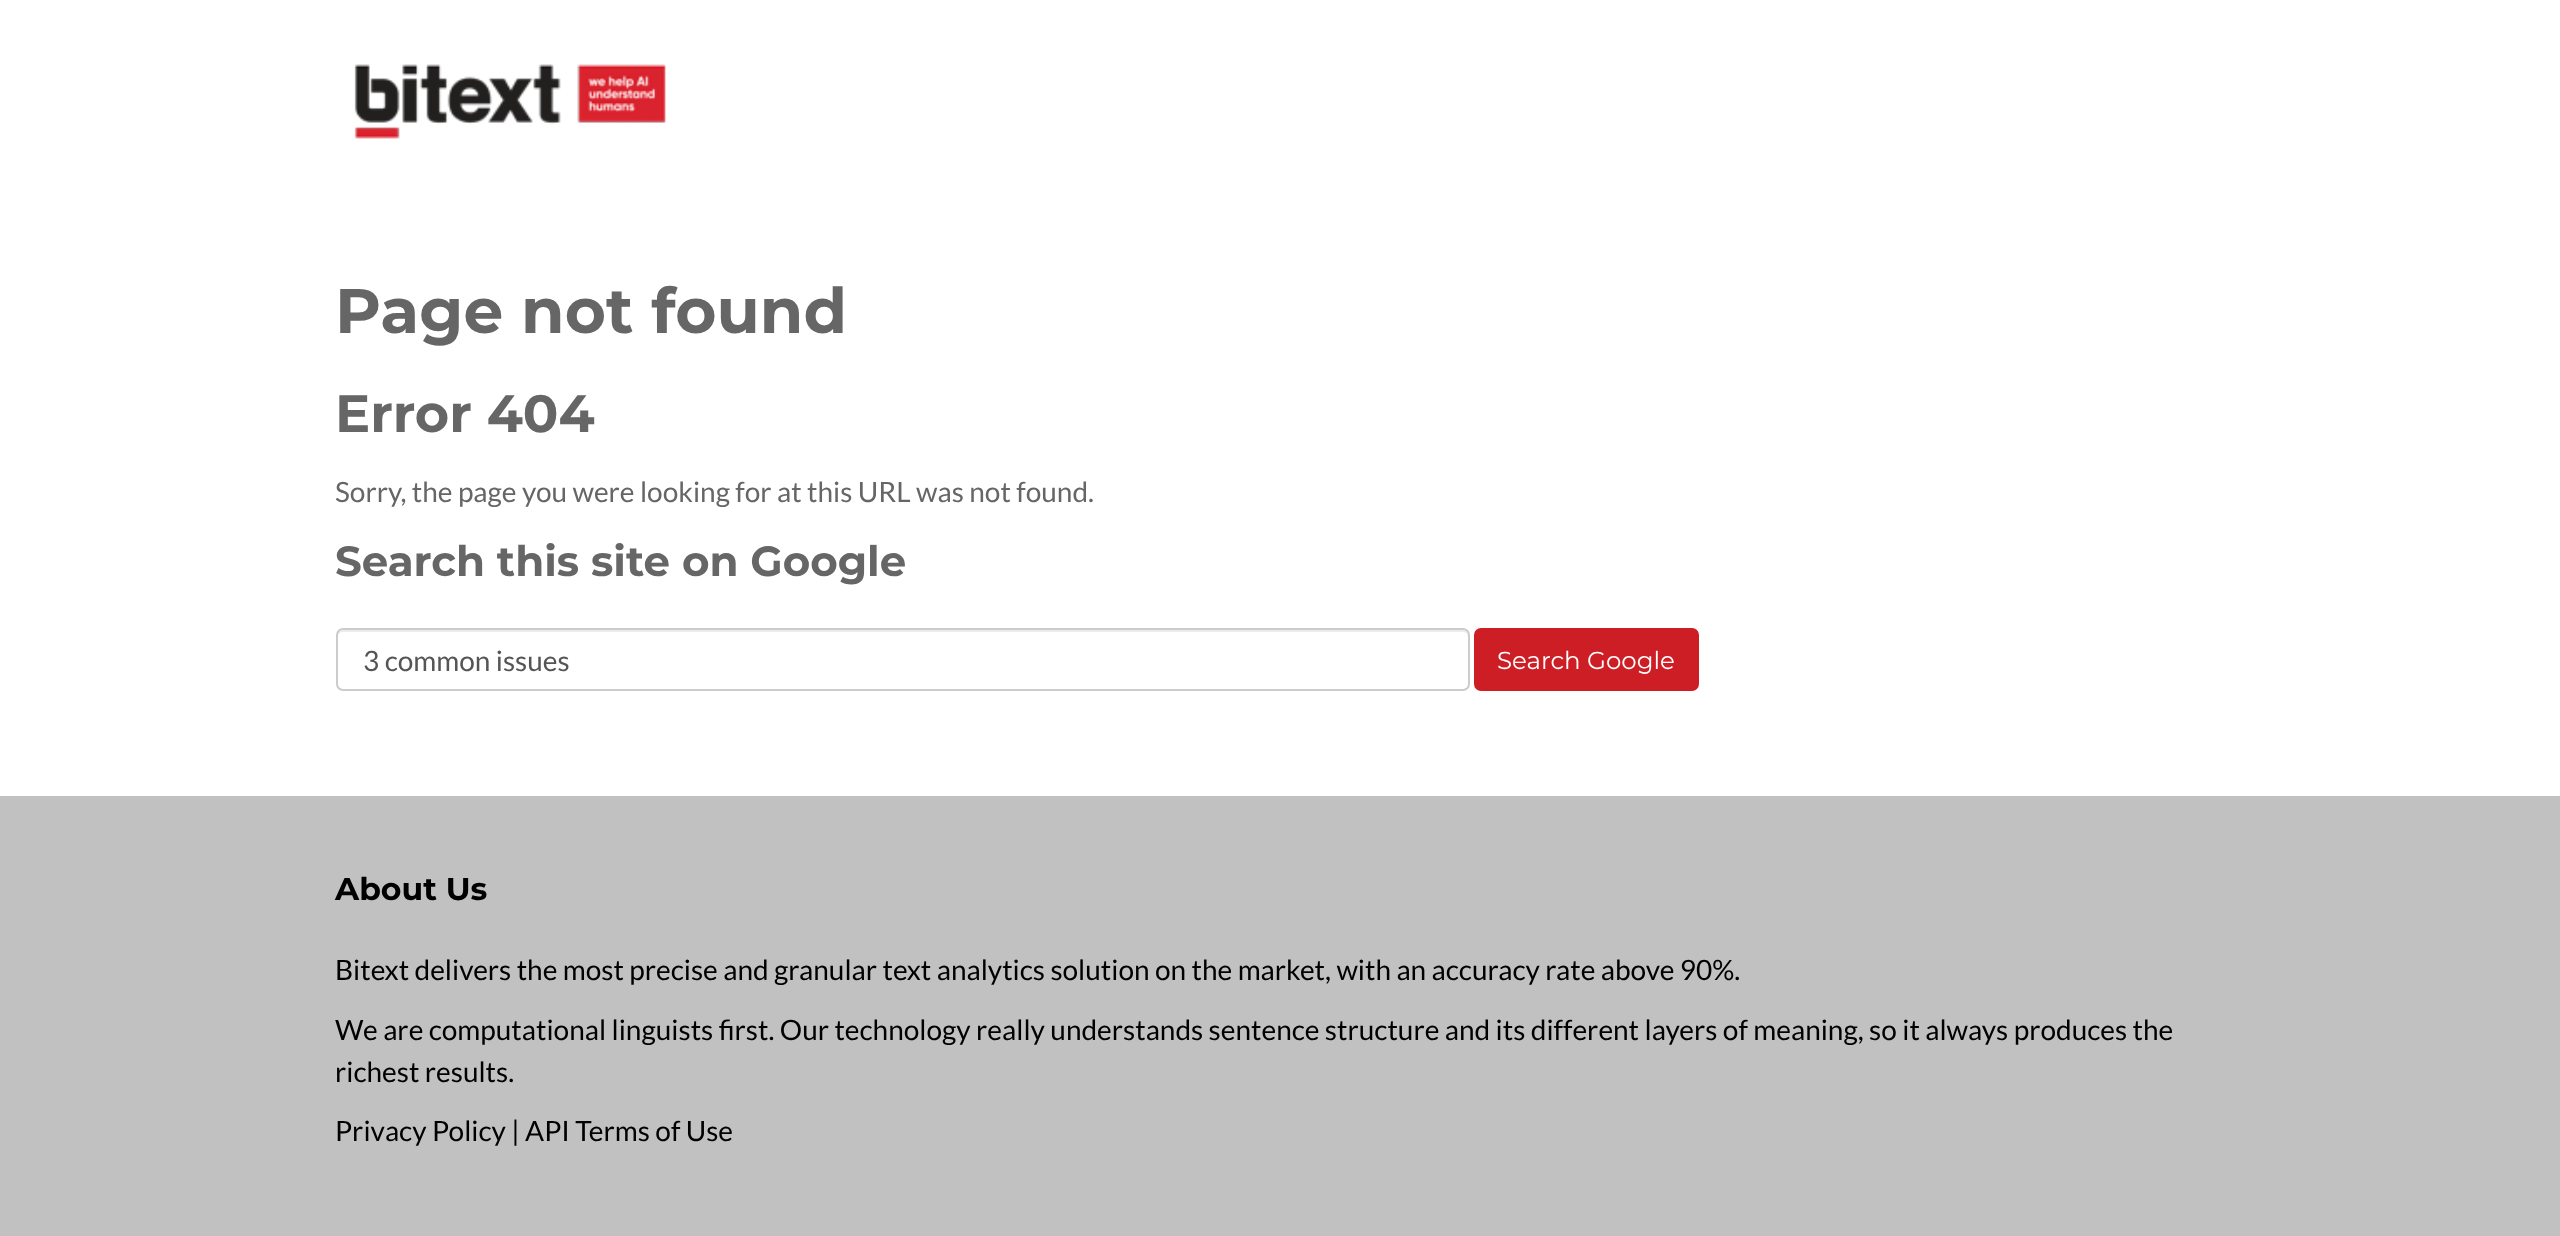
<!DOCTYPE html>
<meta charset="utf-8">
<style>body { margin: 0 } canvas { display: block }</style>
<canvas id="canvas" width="2560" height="1236"></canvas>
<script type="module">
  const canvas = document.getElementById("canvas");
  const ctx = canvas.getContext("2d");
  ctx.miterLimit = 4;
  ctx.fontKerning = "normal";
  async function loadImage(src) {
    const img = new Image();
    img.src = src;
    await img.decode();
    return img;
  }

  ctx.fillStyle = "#ffffff";
  ctx.fillRect(0, 0, 2560, 1236);
  ctx.drawImage(await loadImage("img1.png"), 354, 64, 312, 75);
  ctx.font = "bold 63px Montserrat";
  ctx.fillStyle = "#666666";
  ctx.fillText("Page not found", 335, 333);
  ctx.font = "bold 52.5px Montserrat";
  ctx.fillText("Error 404", 335, 432);
  ctx.font = "28px Lato";
  ctx.fillText("Sorry, the page you were looking for at this URL was not found.", 335, 502);
  ctx.font = "bold 42px Montserrat";
  ctx.fillText("Search this site on Google", 335, 576);
  ctx.fillStyle = "#ececec";
  ctx.beginPath();
  ctx.moveTo(343, 632);
  ctx.lineTo(1463, 632);
  ctx.bezierCurveTo(1466, 632, 1468, 634, 1468, 637);
  ctx.lineTo(1468, 635);
  ctx.bezierCurveTo(1468, 632, 1466, 630, 1463, 630);
  ctx.lineTo(343, 630);
  ctx.bezierCurveTo(340, 630, 338, 632, 338, 635);
  ctx.lineTo(338, 637);
  ctx.bezierCurveTo(338, 634, 340, 632, 343, 632);
  ctx.closePath();
  ctx.fill();
  ctx.beginPath();
  ctx.roundRect(337, 629, 1132, 61, 6);
  ctx.strokeStyle = "#cccccc";
  ctx.lineWidth = 2;
  ctx.stroke();
  ctx.font = "28px Lato";
  ctx.fillStyle = "#555555";
  ctx.fillText("3 common issues", 363, 671);
  ctx.fillStyle = "#ce1e25";
  ctx.beginPath();
  ctx.roundRect(1476, 630, 221, 59, 5);
  ctx.fill();
  ctx.strokeStyle = "#ce1e25";
  ctx.lineWidth = 4;
  ctx.stroke();
  ctx.font = "24.5px Montserrat";
  ctx.fillStyle = "#ffffff";
  ctx.fillText("Search Google", 1497, 669);
  ctx.fillStyle = "#c1c1c1";
  ctx.fillRect(0, 796, 2560, 440);
  ctx.font = "bold 31.5px Montserrat";
  ctx.fillStyle = "#000000";
  ctx.fillText("About Us", 335, 900);
  ctx.font = "28px Lato";
  ctx.fillText("Bitext delivers the most precise and granular text analytics solution on the market, with an accuracy rate above 90%.", 335, 980);
  ctx.fillText("We are computational linguists first. Our technology really understands sentence structure and its different layers of meaning, so it always produces the", 335, 1040);
  ctx.fillText("richest results.", 335, 1082);
  ctx.fillText("Privacy Policy | API Terms of Use", 335, 1141);
</script>
